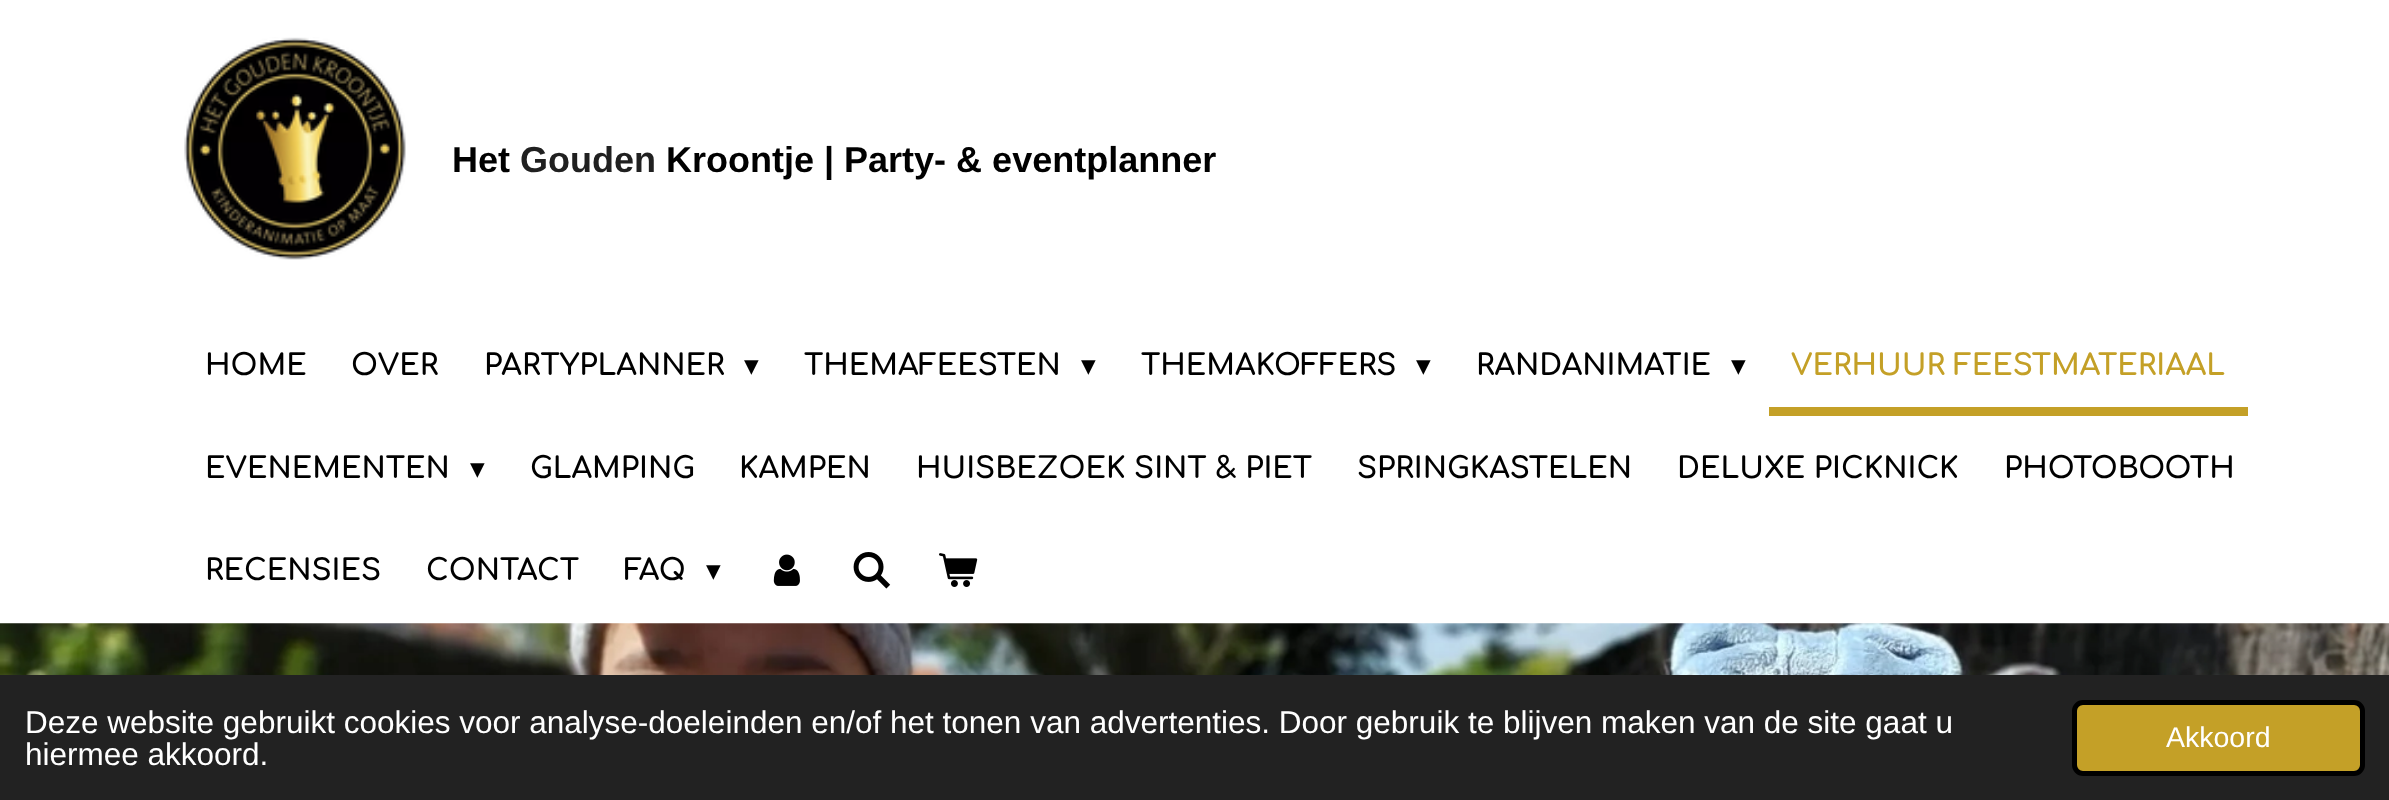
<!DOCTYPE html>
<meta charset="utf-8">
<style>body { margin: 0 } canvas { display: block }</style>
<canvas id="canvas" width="2389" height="800"></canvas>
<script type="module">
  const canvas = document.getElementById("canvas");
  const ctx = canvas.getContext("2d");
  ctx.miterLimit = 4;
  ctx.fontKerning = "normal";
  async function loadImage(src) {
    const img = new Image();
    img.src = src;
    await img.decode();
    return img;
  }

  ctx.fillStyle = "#ffffff";
  ctx.fillRect(0, 0, 2389, 800);
  ctx.drawImage(await loadImage("img1.png"), 184, 37, 222, 223);
  ctx.font = "bold 36px Liberation Sans";
  ctx.fillStyle = "#000000";
  ctx.fillText("Het", 452, 172);
  ctx.fillStyle = "#202020";
  ctx.fillText("Gouden", 520, 172);
  ctx.fillStyle = "#000000";
  ctx.fillText("Kroontje | Party- & eventplanner", 666, 172);
  ctx.font = "bold 29.25px Comfortaa";
  ctx.fillText("HOME", 205, 375);
  ctx.fillText("OVER", 351, 375);
  ctx.fillText("PARTYPLANNER", 484, 375);
  ctx.font = "29.25px DejaVu Sans";
  ctx.fillText("▾", 744, 375);
  ctx.font = "bold 29.25px Comfortaa";
  ctx.fillText("THEMAFEESTEN", 804, 375);
  ctx.font = "29.25px DejaVu Sans";
  ctx.fillText("▾", 1081, 375);
  ctx.font = "bold 29.25px Comfortaa";
  ctx.fillText("THEMAKOFFERS", 1141, 375);
  ctx.font = "29.25px DejaVu Sans";
  ctx.fillText("▾", 1416, 375);
  ctx.font = "bold 29.25px Comfortaa";
  ctx.fillText("RANDANIMATIE", 1476, 375);
  ctx.font = "29.25px DejaVu Sans";
  ctx.fillText("▾", 1731, 375);
  ctx.fillStyle = "#c4a027";
  ctx.fillRect(1769, 407, 479, 9);
  ctx.font = "bold 29.25px Comfortaa";
  ctx.fillText("VERHUUR FEESTMATERIAAL", 1791, 375);
  ctx.fillStyle = "#000000";
  ctx.fillText("EVENEMENTEN", 205, 478);
  ctx.font = "29.25px DejaVu Sans";
  ctx.fillText("▾", 470, 478);
  ctx.font = "bold 29.25px Comfortaa";
  ctx.fillText("GLAMPING", 530, 478);
  ctx.fillText("KAMPEN", 739, 478);
  ctx.fillText("HUISBEZOEK SINT & PIET", 916, 478);
  ctx.fillText("SPRINGKASTELEN", 1357, 478);
  ctx.fillText("DELUXE PICKNICK", 1677, 478);
  ctx.fillText("PHOTOBOOTH", 2004, 478);
  ctx.fillText("RECENSIES", 205, 580);
  ctx.fillText("CONTACT", 426, 580);
  ctx.fillText("FAQ", 624, 580);
  ctx.font = "29.25px DejaVu Sans";
  ctx.fillText("▾", 706, 580);
  ctx.drawImage(await loadImage("img2.png"), 773, 554, 27, 32);
  ctx.drawImage(await loadImage("img3.png"), 853, 552, 38, 37);
  ctx.drawImage(await loadImage("img4.png"), 939, 553, 39, 34);
  ctx.drawImage(await loadImage("img5.png"), 0, 623, 2389, 52);
  ctx.fillStyle = "#222222";
  ctx.fillRect(0, 675, 2389, 125);
  ctx.font = "31.5px Liberation Sans";
  ctx.fillStyle = "#ffffff";
  ctx.fillText("Deze website gebruikt cookies voor analyse-doeleinden en/of het tonen van advertenties. Door gebruik te blijven maken van de site gaat u", 25, 733);
  ctx.fillText("hiermee akkoord.", 25, 765);
  ctx.fillStyle = "#c4a027";
  ctx.beginPath();
  ctx.roundRect(2074.5, 702.5, 288, 71, 8.5);
  ctx.fill();
  ctx.strokeStyle = "#000000";
  ctx.lineWidth = 5;
  ctx.stroke();
  ctx.font = "28.5px Liberation Sans";
  ctx.fillStyle = "#ffffff";
  ctx.fillText("Akkoord", 2166, 747);
</script>
